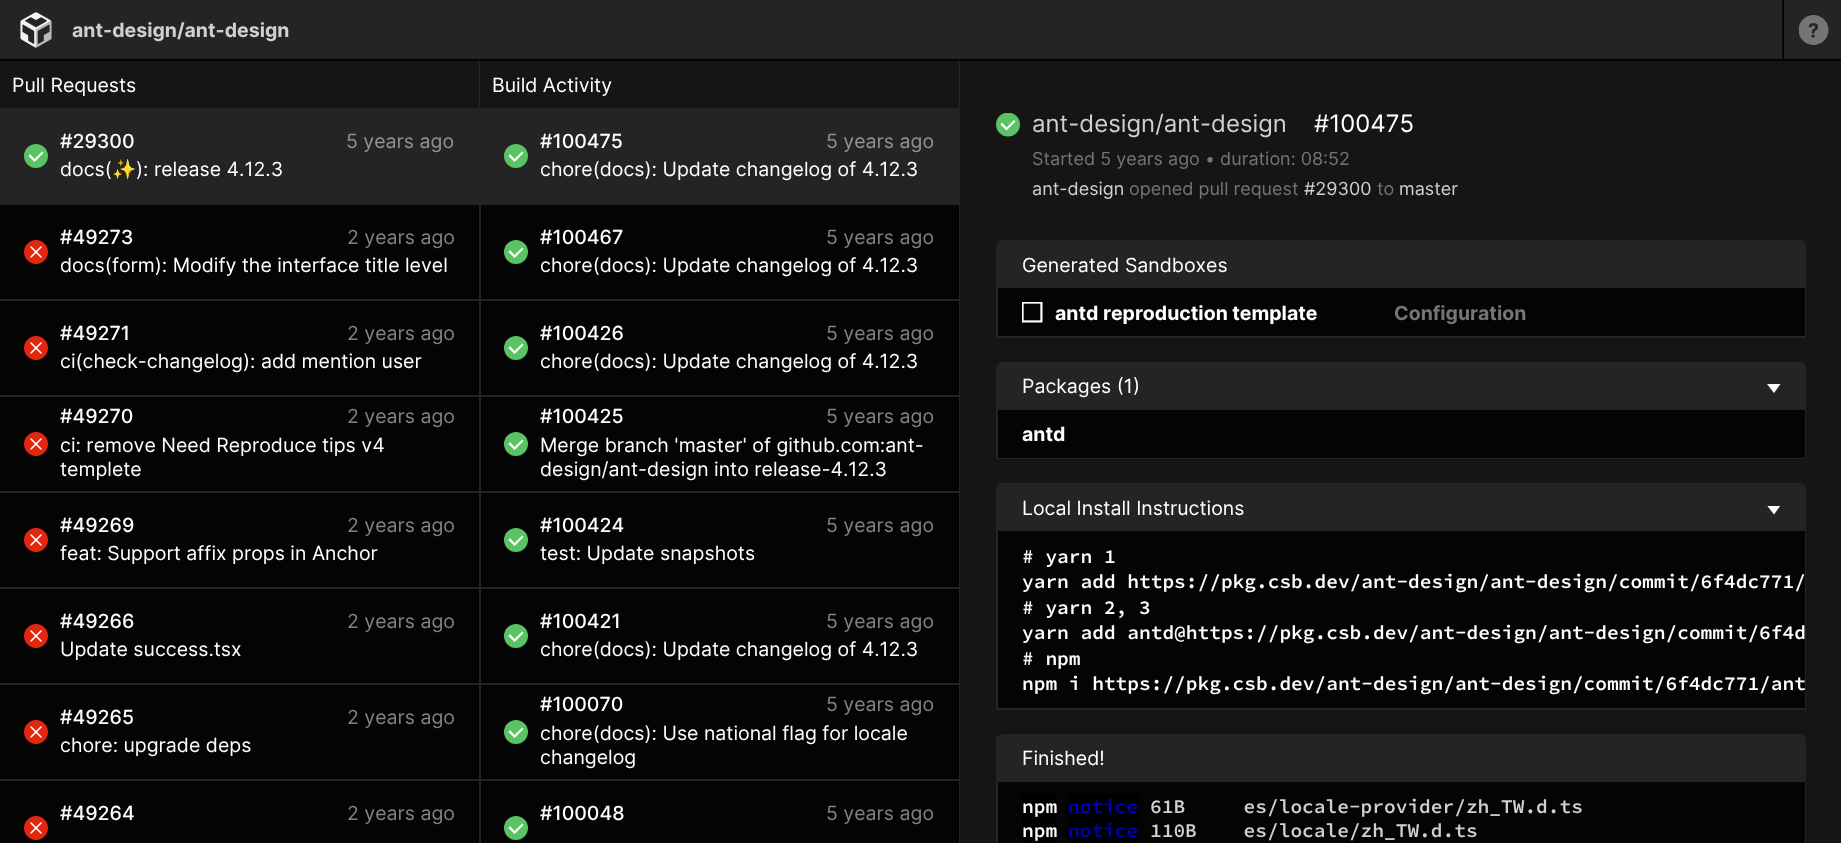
<!DOCTYPE html>
<meta charset="utf-8">
<style>body { margin: 0 } canvas { display: block }</style>
<canvas id="canvas" width="1841" height="843"></canvas>
<script type="module">
  const canvas = document.getElementById("canvas");
  const ctx = canvas.getContext("2d");
  ctx.miterLimit = 4;
  ctx.fontKerning = "none";
  async function loadImage(src) {
    const img = new Image();
    img.src = src;
    await img.decode();
    return img;
  }

  ctx.fillStyle = "#040404";
  ctx.fillRect(0, 0, 1841, 843);
  ctx.fillStyle = "#242424";
  ctx.fillRect(0, 0, 1841, 59);
  ctx.fillRect(479, 60, 2, 783);
  ctx.fillRect(959, 60, 1, 783);
  ctx.fillStyle = "#040404";
  ctx.fillRect(479, 60, 481, 1);
  ctx.drawImage(await loadImage("img1.png"), 20, 12, 32, 36);
  ctx.font = "bold 19.5px Inter";
  ctx.fillStyle = "#d0d0d0";
  ctx.fillText("ant-design/ant-design", 72, 37);
  ctx.fillStyle = "#040404";
  ctx.fillRect(1782, 0, 2, 59);
  ctx.drawImage(await loadImage("img2.png"), 1799, 15, 30, 30);
  ctx.fillStyle = "#151515";
  ctx.fillRect(0, 61, 479, 47);
  ctx.font = "19.5px Inter";
  ctx.fillStyle = "#ffffff";
  ctx.fillText("Pull Requests", 12, 92);
  ctx.fillStyle = "#242424";
  ctx.fillRect(0, 108, 479, 97);
  ctx.fillStyle = "#5bc266";
  ctx.beginPath();
  ctx.arc(36, 156, 12, 0, Math.PI * 2);
  ctx.fill();
  ctx.fillStyle = "#ffffff";
  ctx.beginPath();
  ctx.moveTo(34.5, 159);
  ctx.lineTo(42, 151.5);
  ctx.lineTo(43.5, 153);
  ctx.lineTo(34.5, 162);
  ctx.lineTo(28.5, 156);
  ctx.lineTo(30, 154);
  ctx.closePath();
  ctx.fill("evenodd");
  ctx.font = "500 19.5px Inter";
  ctx.fillText("#29300", 60, 148);
  ctx.font = "19.5px Inter";
  ctx.fillStyle = "#929292";
  ctx.fillText("5 years ago", 346, 148);
  ctx.fillStyle = "#ffffff";
  ctx.fillText("docs(", 60, 176);
  ctx.font = "19.5px Noto Color Emoji";
  ctx.fillText("✨", 112, 176);
  ctx.font = "19.5px Inter";
  ctx.fillText("): release 4.12.3", 136, 176);
  ctx.fillStyle = "#242424";
  ctx.fillRect(0, 299, 479, 2);
  ctx.drawImage(await loadImage("img3.png"), 24, 240, 24, 24);
  ctx.font = "500 19.5px Inter";
  ctx.fillStyle = "#ffffff";
  ctx.fillText("#49273", 60, 244);
  ctx.font = "19.5px Inter";
  ctx.fillStyle = "#828282";
  ctx.fillText("2 years ago", 347, 244);
  ctx.fillStyle = "#ffffff";
  ctx.fillText("docs(form): Modify the interface title level", 60, 272);
  ctx.fillStyle = "#242424";
  ctx.fillRect(0, 395, 479, 2);
  ctx.drawImage(await loadImage("img3.png"), 24, 336, 24, 24);
  ctx.font = "500 19.5px Inter";
  ctx.fillStyle = "#ffffff";
  ctx.fillText("#49271", 60, 340);
  ctx.font = "19.5px Inter";
  ctx.fillStyle = "#828282";
  ctx.fillText("2 years ago", 347, 340);
  ctx.fillStyle = "#ffffff";
  ctx.fillText("ci(check-changelog): add mention user", 60, 368);
  ctx.fillStyle = "#242424";
  ctx.fillRect(0, 491, 479, 2);
  ctx.drawImage(await loadImage("img3.png"), 24, 432, 24, 24);
  ctx.font = "500 19.5px Inter";
  ctx.fillStyle = "#ffffff";
  ctx.fillText("#49270", 60, 423);
  ctx.font = "19.5px Inter";
  ctx.fillStyle = "#828282";
  ctx.fillText("2 years ago", 347, 423);
  ctx.fillStyle = "#ffffff";
  ctx.fillText("ci: remove Need Reproduce tips v4", 60, 452);
  ctx.fillText("templete", 60, 476);
  ctx.fillStyle = "#242424";
  ctx.fillRect(0, 587, 479, 2);
  ctx.drawImage(await loadImage("img3.png"), 24, 528, 24, 24);
  ctx.font = "500 19.5px Inter";
  ctx.fillStyle = "#ffffff";
  ctx.fillText("#49269", 60, 532);
  ctx.font = "19.5px Inter";
  ctx.fillStyle = "#828282";
  ctx.fillText("2 years ago", 347, 532);
  ctx.fillStyle = "#ffffff";
  ctx.fillText("feat: Support affix props in Anchor", 60, 560);
  ctx.fillStyle = "#242424";
  ctx.fillRect(0, 683, 479, 2);
  ctx.drawImage(await loadImage("img3.png"), 24, 624, 24, 24);
  ctx.font = "500 19.5px Inter";
  ctx.fillStyle = "#ffffff";
  ctx.fillText("#49266", 60, 628);
  ctx.font = "19.5px Inter";
  ctx.fillStyle = "#828282";
  ctx.fillText("2 years ago", 347, 628);
  ctx.fillStyle = "#ffffff";
  ctx.fillText("Update success.tsx", 60, 656);
  ctx.fillStyle = "#242424";
  ctx.fillRect(0, 779, 479, 2);
  ctx.drawImage(await loadImage("img3.png"), 24, 720, 24, 24);
  ctx.font = "500 19.5px Inter";
  ctx.fillStyle = "#ffffff";
  ctx.fillText("#49265", 60, 724);
  ctx.font = "19.5px Inter";
  ctx.fillStyle = "#828282";
  ctx.fillText("2 years ago", 347, 724);
  ctx.fillStyle = "#ffffff";
  ctx.fillText("chore: upgrade deps", 60, 752);
  ctx.drawImage(await loadImage("img3.png"), 24, 816, 24, 24);
  ctx.font = "500 19.5px Inter";
  ctx.fillText("#49264", 60, 820);
  ctx.font = "19.5px Inter";
  ctx.fillStyle = "#828282";
  ctx.fillText("2 years ago", 347, 820);
  ctx.fillStyle = "#151515";
  ctx.fillRect(480, 61, 479, 47);
  ctx.fillStyle = "#ffffff";
  ctx.fillText("Build Activity", 492, 92);
  ctx.fillStyle = "#242424";
  ctx.fillRect(481, 108, 478, 95);
  ctx.fillRect(480, 203, 479, 2);
  ctx.fillStyle = "#5bc266";
  ctx.beginPath();
  ctx.arc(516, 156, 12, 0, Math.PI * 2);
  ctx.fill();
  ctx.fillStyle = "#ffffff";
  ctx.beginPath();
  ctx.moveTo(514.5, 159);
  ctx.lineTo(522, 151.5);
  ctx.lineTo(523.5, 153);
  ctx.lineTo(514.5, 162);
  ctx.lineTo(508.5, 156);
  ctx.lineTo(510, 154);
  ctx.closePath();
  ctx.fill("evenodd");
  ctx.font = "500 19.5px Inter";
  ctx.fillText("#100475", 540, 148);
  ctx.font = "19.5px Inter";
  ctx.fillStyle = "#929292";
  ctx.fillText("5 years ago", 826, 148);
  ctx.fillStyle = "#ffffff";
  ctx.fillText("chore(docs): Update changelog of 4.12.3", 540, 176);
  ctx.fillStyle = "#242424";
  ctx.fillRect(480, 299, 479, 2);
  ctx.fillStyle = "#5bc266";
  ctx.beginPath();
  ctx.arc(516, 252, 12, 0, Math.PI * 2);
  ctx.fill();
  ctx.fillStyle = "#ffffff";
  ctx.beginPath();
  ctx.moveTo(514.5, 255);
  ctx.lineTo(522, 247.5);
  ctx.lineTo(523.5, 249);
  ctx.lineTo(514.5, 258);
  ctx.lineTo(508.5, 252);
  ctx.lineTo(510, 250);
  ctx.closePath();
  ctx.fill("evenodd");
  ctx.font = "500 19.5px Inter";
  ctx.fillText("#100467", 540, 244);
  ctx.font = "19.5px Inter";
  ctx.fillStyle = "#828282";
  ctx.fillText("5 years ago", 826, 244);
  ctx.fillStyle = "#ffffff";
  ctx.fillText("chore(docs): Update changelog of 4.12.3", 540, 272);
  ctx.fillStyle = "#242424";
  ctx.fillRect(480, 395, 479, 2);
  ctx.fillStyle = "#5bc266";
  ctx.beginPath();
  ctx.arc(516, 348, 12, 0, Math.PI * 2);
  ctx.fill();
  ctx.fillStyle = "#ffffff";
  ctx.beginPath();
  ctx.moveTo(514.5, 351);
  ctx.lineTo(522, 343.5);
  ctx.lineTo(523.5, 345);
  ctx.lineTo(514.5, 354);
  ctx.lineTo(508.5, 348);
  ctx.lineTo(510, 346);
  ctx.closePath();
  ctx.fill("evenodd");
  ctx.font = "500 19.5px Inter";
  ctx.fillText("#100426", 540, 340);
  ctx.font = "19.5px Inter";
  ctx.fillStyle = "#828282";
  ctx.fillText("5 years ago", 826, 340);
  ctx.fillStyle = "#ffffff";
  ctx.fillText("chore(docs): Update changelog of 4.12.3", 540, 368);
  ctx.fillStyle = "#242424";
  ctx.fillRect(480, 491, 479, 2);
  ctx.fillStyle = "#5bc266";
  ctx.beginPath();
  ctx.arc(516, 444, 12, 0, Math.PI * 2);
  ctx.fill();
  ctx.fillStyle = "#ffffff";
  ctx.beginPath();
  ctx.moveTo(514.5, 447);
  ctx.lineTo(522, 439.5);
  ctx.lineTo(523.5, 441);
  ctx.lineTo(514.5, 450);
  ctx.lineTo(508.5, 444);
  ctx.lineTo(510, 442);
  ctx.closePath();
  ctx.fill("evenodd");
  ctx.font = "500 19.5px Inter";
  ctx.fillText("#100425", 540, 423);
  ctx.font = "19.5px Inter";
  ctx.fillStyle = "#828282";
  ctx.fillText("5 years ago", 826, 423);
  ctx.fillStyle = "#ffffff";
  ctx.fillText("Merge branch 'master' of github.com:ant-", 540, 452);
  ctx.fillText("design/ant-design into release-4.12.3", 540, 476);
  ctx.fillStyle = "#242424";
  ctx.fillRect(480, 587, 479, 2);
  ctx.fillStyle = "#5bc266";
  ctx.beginPath();
  ctx.arc(516, 540, 12, 0, Math.PI * 2);
  ctx.fill();
  ctx.fillStyle = "#ffffff";
  ctx.beginPath();
  ctx.moveTo(514.5, 543);
  ctx.lineTo(522, 535.5);
  ctx.lineTo(523.5, 537);
  ctx.lineTo(514.5, 546);
  ctx.lineTo(508.5, 540);
  ctx.lineTo(510, 538);
  ctx.closePath();
  ctx.fill("evenodd");
  ctx.font = "500 19.5px Inter";
  ctx.fillText("#100424", 540, 532);
  ctx.font = "19.5px Inter";
  ctx.fillStyle = "#828282";
  ctx.fillText("5 years ago", 826, 532);
  ctx.fillStyle = "#ffffff";
  ctx.fillText("test: Update snapshots", 540, 560);
  ctx.fillStyle = "#242424";
  ctx.fillRect(480, 683, 479, 2);
  ctx.fillStyle = "#5bc266";
  ctx.beginPath();
  ctx.arc(516, 636, 12, 0, Math.PI * 2);
  ctx.fill();
  ctx.fillStyle = "#ffffff";
  ctx.beginPath();
  ctx.moveTo(514.5, 639);
  ctx.lineTo(522, 631.5);
  ctx.lineTo(523.5, 633);
  ctx.lineTo(514.5, 642);
  ctx.lineTo(508.5, 636);
  ctx.lineTo(510, 634);
  ctx.closePath();
  ctx.fill("evenodd");
  ctx.font = "500 19.5px Inter";
  ctx.fillText("#100421", 540, 628);
  ctx.font = "19.5px Inter";
  ctx.fillStyle = "#828282";
  ctx.fillText("5 years ago", 826, 628);
  ctx.fillStyle = "#ffffff";
  ctx.fillText("chore(docs): Update changelog of 4.12.3", 540, 656);
  ctx.fillStyle = "#242424";
  ctx.fillRect(480, 779, 479, 2);
  ctx.fillStyle = "#5bc266";
  ctx.beginPath();
  ctx.arc(516, 732, 12, 0, Math.PI * 2);
  ctx.fill();
  ctx.fillStyle = "#ffffff";
  ctx.beginPath();
  ctx.moveTo(514.5, 735);
  ctx.lineTo(522, 727.5);
  ctx.lineTo(523.5, 729);
  ctx.lineTo(514.5, 738);
  ctx.lineTo(508.5, 732);
  ctx.lineTo(510, 730);
  ctx.closePath();
  ctx.fill("evenodd");
  ctx.font = "500 19.5px Inter";
  ctx.fillText("#100070", 540, 711);
  ctx.font = "19.5px Inter";
  ctx.fillStyle = "#828282";
  ctx.fillText("5 years ago", 826, 711);
  ctx.fillStyle = "#ffffff";
  ctx.fillText("chore(docs): Use national flag for locale", 540, 740);
  ctx.fillText("changelog", 540, 764);
  ctx.fillStyle = "#5bc266";
  ctx.beginPath();
  ctx.arc(516, 828, 12, 0, Math.PI * 2);
  ctx.fill();
  ctx.fillStyle = "#ffffff";
  ctx.beginPath();
  ctx.moveTo(514.5, 831);
  ctx.lineTo(522, 823.5);
  ctx.lineTo(523.5, 825);
  ctx.lineTo(514.5, 834);
  ctx.lineTo(508.5, 828);
  ctx.lineTo(510, 826);
  ctx.closePath();
  ctx.fill("evenodd");
  ctx.font = "500 19.5px Inter";
  ctx.fillText("#100048", 540, 820);
  ctx.font = "19.5px Inter";
  ctx.fillStyle = "#828282";
  ctx.fillText("5 years ago", 826, 820);
  ctx.fillStyle = "#151515";
  ctx.fillRect(960, 61, 881, 782);
  ctx.save();
  ctx.beginPath();
  ctx.rect(996, 113, 24, 24);
  ctx.clip();
  ctx.fillStyle = "#5bc266";
  ctx.beginPath();
  ctx.arc(1008, 124.5, 12, 0, Math.PI * 2);
  ctx.fill();
  ctx.restore();
  ctx.fillStyle = "#ffffff";
  ctx.beginPath();
  ctx.moveTo(1006.5, 127.5);
  ctx.lineTo(1014, 120);
  ctx.lineTo(1015.5, 121.5);
  ctx.lineTo(1006.5, 130.5);
  ctx.lineTo(1000.5, 124.5);
  ctx.lineTo(1002, 122.5);
  ctx.closePath();
  ctx.fill("evenodd");
  ctx.font = "24px Inter";
  ctx.fillStyle = "#d0d0d0";
  ctx.fillText("ant-design/ant-design", 1032, 132);
  ctx.fillStyle = "#ffffff";
  ctx.fillText("#100475", 1314, 132);
  ctx.font = "18px Inter";
  ctx.fillStyle = "#757575";
  ctx.fillText("Started 5 years ago • duration: 08:52", 1032, 165);
  ctx.fillStyle = "#d0d0d0";
  ctx.fillText("ant-design", 1032, 195);
  ctx.fillStyle = "#757575";
  ctx.fillText("opened pull request", 1129, 195);
  ctx.fillStyle = "#d0d0d0";
  ctx.fillText("#29300", 1304, 195);
  ctx.fillStyle = "#757575";
  ctx.fillText("to", 1377, 195);
  ctx.fillStyle = "#d0d0d0";
  ctx.fillText("master", 1399, 195);
  ctx.fillStyle = "#242424";
  ctx.beginPath();
  ctx.roundRect(997, 241, 808, 46, [5, 5, 0, 0]);
  ctx.fill();
  ctx.strokeStyle = "#242424";
  ctx.lineWidth = 2;
  ctx.stroke();
  ctx.font = "19.5px Inter";
  ctx.fillStyle = "#ffffff";
  ctx.fillText("Generated Sandboxes", 1022, 272);
  ctx.fillStyle = "#040404";
  ctx.fillRect(998, 288, 807, 48);
  ctx.fillStyle = "#242424";
  ctx.fillRect(1805, 288, 1, 50);
  ctx.fillRect(996, 336, 810, 2);
  ctx.fillRect(996, 288, 2, 50);
  ctx.drawImage(await loadImage("img4.png"), 1022, 302, 21, 21);
  ctx.font = "bold 19.5px Inter";
  ctx.fillStyle = "#ffffff";
  ctx.fillText("antd reproduction template", 1055, 320);
  ctx.fillStyle = "#757575";
  ctx.fillText("Configuration", 1394, 320);
  ctx.fillStyle = "#242424";
  ctx.beginPath();
  ctx.roundRect(997, 363, 808, 46, [5, 5, 0, 0]);
  ctx.fill();
  ctx.stroke();
  ctx.font = "19.5px Inter";
  ctx.fillStyle = "#ffffff";
  ctx.fillText("Packages (1)", 1022, 393);
  ctx.beginPath();
  ctx.moveTo(1774, 393);
  ctx.lineTo(1767, 384);
  ctx.lineTo(1780.5, 384);
  ctx.closePath();
  ctx.fill();
  ctx.fillStyle = "#040404";
  ctx.fillRect(998, 410, 807, 48);
  ctx.fillStyle = "#242424";
  ctx.fillRect(1805, 410, 1, 49);
  ctx.fillRect(996, 458, 810, 1);
  ctx.fillRect(996, 410, 2, 49);
  ctx.font = "bold 19.5px Inter";
  ctx.fillStyle = "#ffffff";
  ctx.fillText("antd", 1022, 441);
  ctx.fillStyle = "#242424";
  ctx.beginPath();
  ctx.roundRect(997, 484, 808, 46, [5, 5, 0, 0]);
  ctx.fill();
  ctx.stroke();
  ctx.font = "19.5px Inter";
  ctx.fillStyle = "#ffffff";
  ctx.fillText("Local Install Instructions", 1022, 515);
  ctx.save();
  ctx.beginPath();
  ctx.rect(1767, 506, 14, 9);
  ctx.clip();
  ctx.beginPath();
  ctx.moveTo(1774, 514.5);
  ctx.lineTo(1767, 505.5);
  ctx.lineTo(1780.5, 505.5);
  ctx.closePath();
  ctx.fill();
  ctx.restore();
  ctx.fillStyle = "#040404";
  ctx.fillRect(998, 531, 807, 177);
  ctx.fillStyle = "#242424";
  ctx.fillRect(1805, 531, 1, 179);
  ctx.fillRect(996, 708, 810, 2);
  ctx.fillRect(996, 531, 2, 179);
  ctx.font = "600 19.5px Source Code Pro";
  ctx.fillStyle = "#ffffff";
  ctx.fillText("# yarn 1", 1022, 563);
  ctx.fillText("yarn add https://pkg.csb.dev/ant-design/ant-design/commit/6f4dc771/", 1022, 588);
  ctx.fillText("# yarn 2, 3", 1022, 614);
  ctx.fillText("yarn add antd@https://pkg.csb.dev/ant-design/ant-design/commit/6f4d", 1022, 639);
  ctx.fillText("# npm", 1022, 665);
  ctx.fillText("npm i https://pkg.csb.dev/ant-design/ant-design/commit/6f4dc771/ant", 1022, 690);
  ctx.fillStyle = "#242424";
  ctx.beginPath();
  ctx.roundRect(997, 735, 808, 46, [5, 5, 0, 0]);
  ctx.fill();
  ctx.stroke();
  ctx.font = "19.5px Inter";
  ctx.fillStyle = "#ffffff";
  ctx.fillText("Finished!", 1022, 765);
  ctx.fillStyle = "#040404";
  ctx.fillRect(998, 782, 807, 61);
  ctx.fillStyle = "#242424";
  ctx.fillRect(1805, 782, 1, 61);
  ctx.fillRect(996, 782, 2, 61);
  ctx.fillStyle = "#000000";
  ctx.fillRect(1022, 794, 34, 49);
  ctx.font = "600 19.5px Source Code Pro";
  ctx.fillStyle = "#ffffff";
  ctx.fillText("npm", 1022, 813);
  ctx.fillStyle = "#000000";
  ctx.fillRect(1068, 794, 71, 49);
  ctx.fillStyle = "#0000bb";
  ctx.fillText("notice", 1068, 813);
  ctx.fillStyle = "#d0d0d0";
  ctx.fillText("61B     es/locale-provider/zh_TW.d.ts", 1150, 813);
  ctx.fillStyle = "#ffffff";
  ctx.fillText("npm", 1022, 837);
  ctx.fillStyle = "#0000bb";
  ctx.fillText("notice", 1068, 837);
  ctx.fillStyle = "#d0d0d0";
  ctx.fillText("110B    es/locale/zh_TW.d.ts", 1150, 837);
</script>
